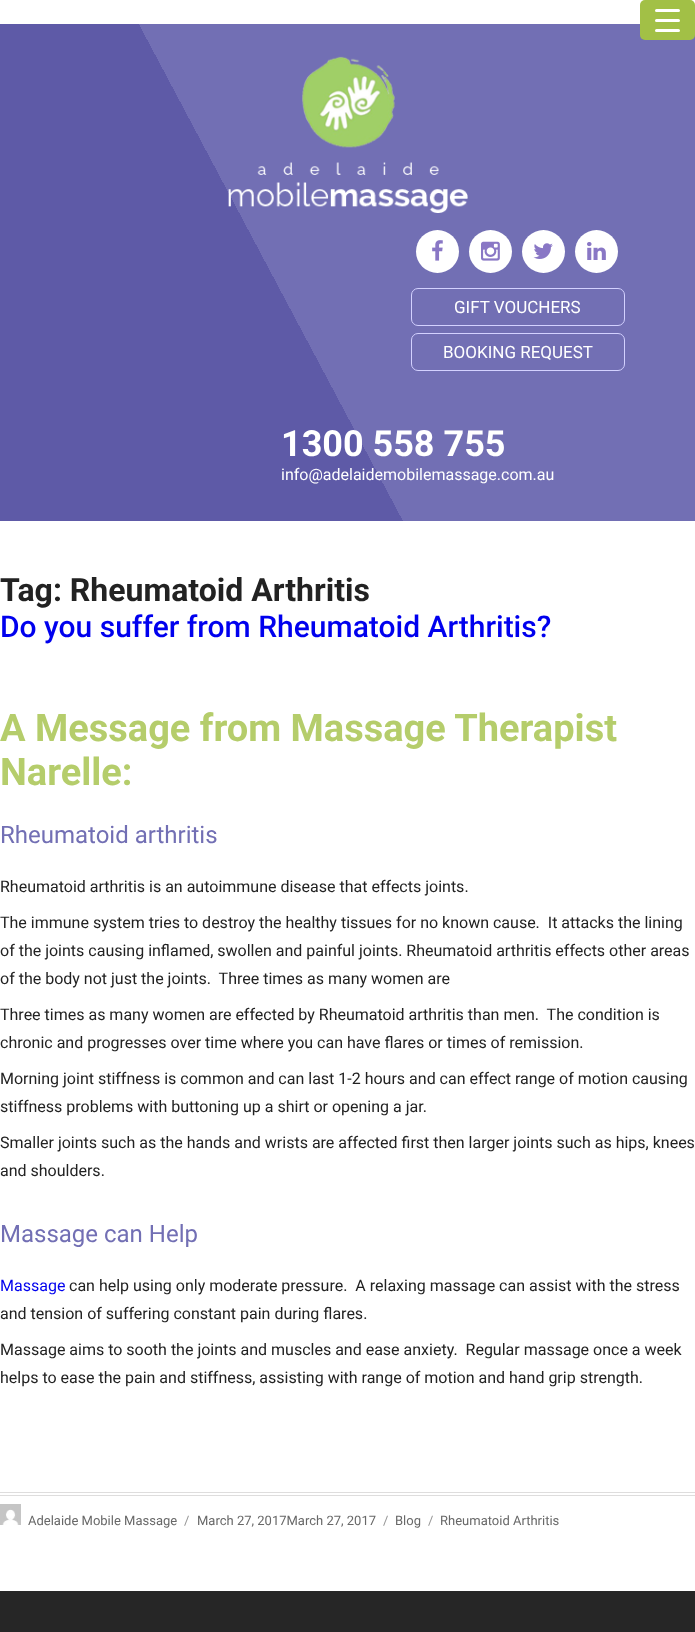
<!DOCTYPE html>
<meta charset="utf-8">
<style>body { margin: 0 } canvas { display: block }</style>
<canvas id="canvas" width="695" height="1632"></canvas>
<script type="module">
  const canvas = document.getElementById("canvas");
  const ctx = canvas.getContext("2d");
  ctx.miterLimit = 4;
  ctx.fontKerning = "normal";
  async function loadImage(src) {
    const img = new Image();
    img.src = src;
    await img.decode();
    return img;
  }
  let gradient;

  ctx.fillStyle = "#ffffff";
  ctx.fillRect(0, 0, 695, 1632);
  gradient = ctx.createLinearGradient(-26, 471, 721, 74);
  gradient.addColorStop(0.42, "#5e5aa7");
  gradient.addColorStop(0.42, "#726fb4");
  ctx.fillStyle = gradient;
  ctx.fillRect(0, 24, 695, 497);
  ctx.fillStyle = "#a2c046";
  ctx.beginPath();
  ctx.roundRect(640, 0, 55, 40, 5);
  ctx.fill();
  ctx.fillStyle = "#ffffff";
  ctx.beginPath();
  ctx.roundRect(655, 19, 25, 3, 1.5);
  ctx.fill();
  ctx.beginPath();
  ctx.roundRect(655, 9, 25, 3, 1.5);
  ctx.fill();
  ctx.beginPath();
  ctx.roundRect(655, 29, 25, 3, 1.5);
  ctx.fill();
  ctx.drawImage(await loadImage("img1.png"), 228, 56, 240, 157);
  ctx.beginPath();
  ctx.arc(437.5, 251.5, 21.5, 0, Math.PI * 2);
  ctx.fill();
  ctx.drawImage(await loadImage("img2.png"), 432, 240, 11, 21);
  ctx.beginPath();
  ctx.arc(490.5, 251.5, 21.5, 0, Math.PI * 2);
  ctx.fill();
  ctx.drawImage(await loadImage("img3.png"), 481, 241, 19, 20);
  ctx.beginPath();
  ctx.arc(543.5, 251.5, 21.5, 0, Math.PI * 2);
  ctx.fill();
  ctx.drawImage(await loadImage("img4.png"), 533, 243, 20, 16);
  ctx.beginPath();
  ctx.arc(596.5, 251.5, 21.5, 0, Math.PI * 2);
  ctx.fill();
  ctx.drawImage(await loadImage("img5.png"), 587, 242, 19, 18);
  ctx.beginPath();
  ctx.roundRect(411.5, 288.5, 213, 37, 6.5);
  ctx.strokeStyle = "#d3d1ff";
  ctx.stroke();
  ctx.font = "17px Roboto";
  ctx.fillText("GIFT VOUCHERS", 454, 313);
  ctx.beginPath();
  ctx.roundRect(411.5, 333.5, 213, 37, 6.5);
  ctx.stroke();
  ctx.fillText("BOOKING REQUEST", 443, 358);
  ctx.font = "bold 36px Roboto";
  ctx.fillText("1300 558 755", 281, 456);
  ctx.font = "16px Roboto";
  ctx.fillText("info@adelaidemobilemassage.com.au", 281, 480);
  ctx.font = "bold 32px Roboto";
  ctx.fillStyle = "#222222";
  ctx.fillText("Tag: Rheumatoid Arthritis", 0, 601);
  ctx.font = "500 30px Roboto";
  ctx.fillStyle = "#0000ee";
  ctx.fillText("Do you suffer from Rheumatoid Arthritis?", 0, 637);
  ctx.font = "bold 38px Roboto";
  ctx.fillStyle = "#b5cd6b";
  ctx.fillText("A Message from Massage Therapist", 0, 741);
  ctx.fillText("Narelle:", 0, 785);
  ctx.font = "24px Roboto";
  ctx.fillStyle = "#726fb4";
  ctx.fillText("Rheumatoid arthritis", 0, 843);
  ctx.font = "16px Roboto";
  ctx.fillStyle = "#222222";
  ctx.fillText("Rheumatoid arthritis is an autoimmune disease that effects joints.", 0, 892);
  ctx.fillText("The immune system tries to destroy the healthy tissues for no known cause.  It attacks the lining", 0, 928);
  ctx.fillText("of the joints causing inflamed, swollen and painful joints. Rheumatoid arthritis effects other areas", 0, 956);
  ctx.fillText("of the body not just the joints.  Three times as many women are", 0, 984);
  ctx.fillText("Three times as many women are effected by Rheumatoid arthritis than men.  The condition is", 0, 1020);
  ctx.fillText("chronic and progresses over time where you can have flares or times of remission.", 0, 1048);
  ctx.fillText("Morning joint stiffness is common and can last 1-2 hours and can effect range of motion causing", 0, 1084);
  ctx.fillText("stiffness problems with buttoning up a shirt or opening a jar.", 0, 1112);
  ctx.fillText("Smaller joints such as the hands and wrists are affected first then larger joints such as hips, knees", 0, 1148);
  ctx.fillText("and shoulders.", 0, 1176);
  ctx.font = "24px Roboto";
  ctx.fillStyle = "#726fb4";
  ctx.fillText("Massage can Help", 0, 1242);
  ctx.font = "16px Roboto";
  ctx.fillStyle = "#0000ee";
  ctx.fillText("Massage", 0, 1291);
  ctx.fillStyle = "#222222";
  ctx.fillText("can help using only moderate pressure.  A relaxing massage can assist with the stress", 69, 1291);
  ctx.fillText("and tension of suffering constant pain during flares.", 0, 1319);
  ctx.fillText("Massage aims to sooth the joints and muscles and ease anxiety.  Regular massage once a week", 0, 1355);
  ctx.fillText("helps to ease the pain and stiffness, assisting with range of motion and hand grip strength.", 0, 1383);
  ctx.fillStyle = "#dedddd";
  ctx.fillRect(0, 1492, 695, 1);
  ctx.fillRect(0, 1495, 695, 1);
  ctx.drawImage(await loadImage("img6.png"), 0, 1504, 21, 21);
  ctx.font = "13px Roboto";
  ctx.fillStyle = "#686868";
  ctx.fillText("Adelaide Mobile Massage", 28, 1525);
  ctx.fillStyle = "#959595";
  ctx.fillText("/", 184, 1525);
  ctx.fillStyle = "#686868";
  ctx.fillText("March 27, 2017March 27, 2017", 197, 1525);
  ctx.fillStyle = "#959595";
  ctx.fillText("/", 383, 1525);
  ctx.fillStyle = "#686868";
  ctx.fillText("Blog", 395, 1525);
  ctx.fillStyle = "#959595";
  ctx.fillText("/", 428, 1525);
  ctx.fillStyle = "#686868";
  ctx.fillText("Rheumatoid Arthritis", 440, 1525);
  ctx.fillStyle = "#262626";
  ctx.fillRect(0, 1591, 695, 41);
</script>
